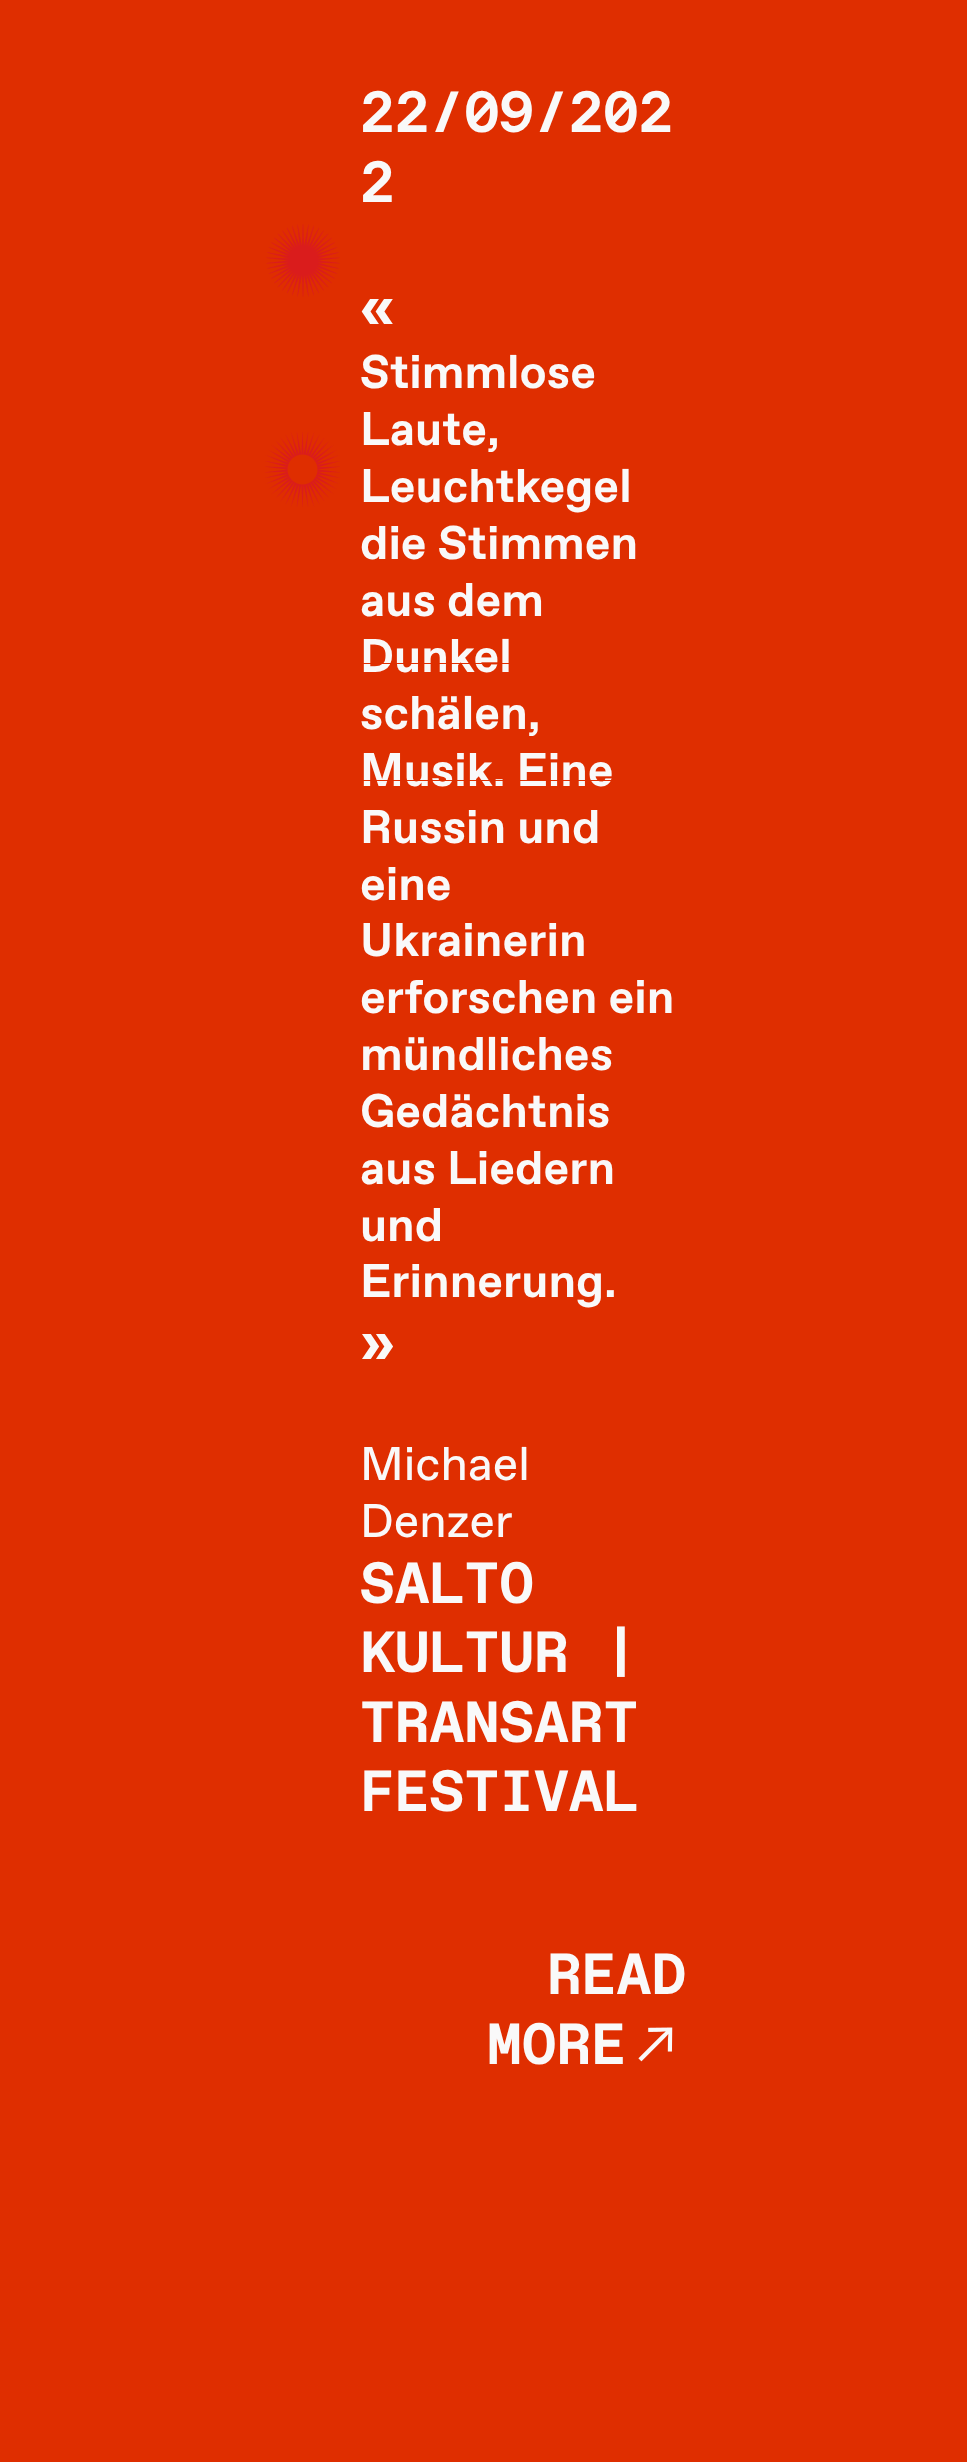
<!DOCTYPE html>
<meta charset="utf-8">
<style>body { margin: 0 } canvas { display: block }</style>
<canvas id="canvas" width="967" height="2462"></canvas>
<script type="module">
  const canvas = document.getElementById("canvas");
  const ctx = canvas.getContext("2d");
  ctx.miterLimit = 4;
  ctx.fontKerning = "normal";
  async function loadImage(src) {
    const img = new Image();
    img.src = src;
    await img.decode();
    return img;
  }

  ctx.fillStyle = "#df2e00";
  ctx.fillRect(0, 0, 967, 2462);
  ctx.font = "bold 58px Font";
  ctx.fillStyle = "#f9f9f9";
  ctx.fillText("22/09/202", 360, 132);
  ctx.fillText("2", 360, 202);
  ctx.fillText("«", 360, 328);
  ctx.font = "bold 47.25px 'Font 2'";
  ctx.fillText("Stimmlose", 360, 388);
  ctx.fillText("Laute,", 360, 445);
  ctx.fillText("Leuchtkegel", 360, 502);
  ctx.fillText("die Stimmen", 360, 559);
  ctx.fillText("aus dem", 360, 616);
  ctx.fillText("Dunkel", 360, 672);
  ctx.fillText("schälen,", 360, 729);
  ctx.fillText("Musik. Eine", 360, 786);
  ctx.fillText("Russin und", 360, 843);
  ctx.fillText("eine", 360, 900);
  ctx.fillText("Ukrainerin", 360, 956);
  ctx.fillText("erforschen ein", 360, 1013);
  ctx.fillText("mündliches", 360, 1070);
  ctx.fillText("Gedächtnis", 360, 1127);
  ctx.fillText("aus Liedern", 360, 1184);
  ctx.fillText("und", 360, 1241);
  ctx.fillText("Erinnerung.", 360, 1297);
  ctx.font = "bold 58px Font";
  ctx.fillText("»", 360, 1363);
  ctx.font = "47.25px Font";
  ctx.fillText("Michael", 360, 1480);
  ctx.fillText("Denzer", 360, 1537);
  ctx.font = "bold 58px Font";
  ctx.fillText("SALTO", 360, 1603);
  ctx.fillText("KULTUR |", 360, 1672);
  ctx.fillText("TRANSART", 360, 1742);
  ctx.fillText("FESTIVAL", 360, 1811);
  ctx.fillText("READ", 547, 1994);
  ctx.fillText("MORE", 487, 2064);
  ctx.drawImage(await loadImage("img1.png"), 638, 2027, 35, 35);
  ctx.drawImage(await loadImage("img2.png"), 266, 224, 74, 73);
  ctx.drawImage(await loadImage("img3.png"), 265, 432, 75, 75);
  ctx.fillStyle = "#df2e00";
  ctx.fillRect(363, 663, 146, 1);
  ctx.fillRect(363, 780, 249, 1);
</script>
